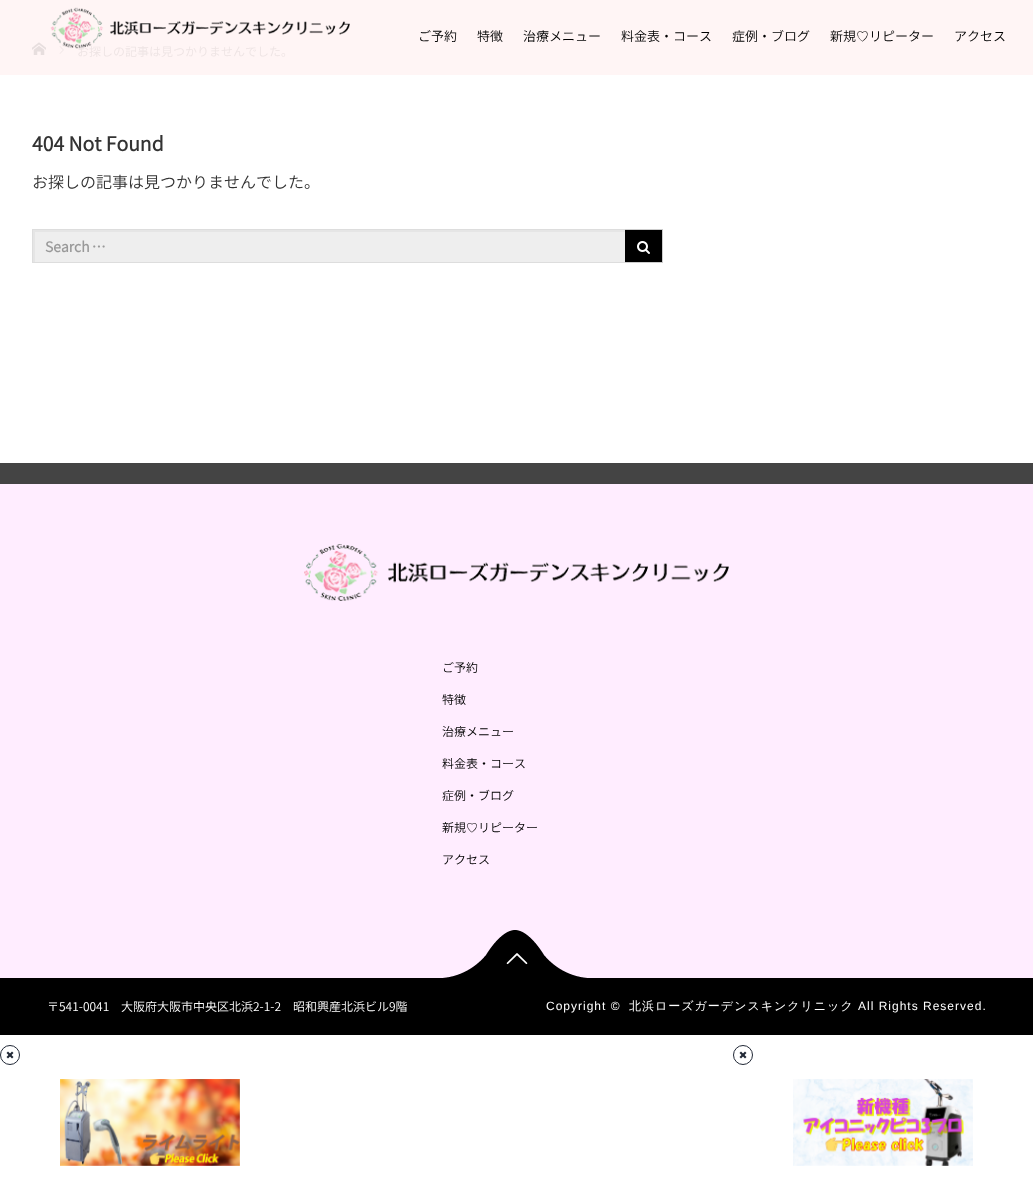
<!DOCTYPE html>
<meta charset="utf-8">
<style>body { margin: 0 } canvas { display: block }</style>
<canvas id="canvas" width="1033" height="1196"></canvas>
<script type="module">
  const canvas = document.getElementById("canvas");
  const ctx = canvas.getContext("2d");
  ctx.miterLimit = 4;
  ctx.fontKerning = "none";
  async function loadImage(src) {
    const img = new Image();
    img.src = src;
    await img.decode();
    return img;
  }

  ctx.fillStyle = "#ffffff";
  ctx.fillRect(0, 0, 1033, 1196);
  ctx.fillStyle = "#fff5f5";
  ctx.fillRect(0, 0, 1033, 75);
  ctx.drawImage(await loadImage("img3.png"), 59, 46, 5, 8);
  ctx.font = "300 12px Noto Sans JP";
  ctx.fillStyle = "#eee4e4";
  ctx.fillText("お探しの記事は見つかりませんでした。", 77, 56);
  ctx.drawImage(await loadImage("img1.png"), 50, 7, 300, 42);
  ctx.font = "300 13px Noto Sans JP";
  ctx.fillStyle = "#000000";
  ctx.fillText("ご予約", 418, 41);
  ctx.fillText("特徴", 477, 41);
  ctx.fillText("治療メニュー", 523, 41);
  ctx.fillText("料金表・コース", 621, 41);
  ctx.fillText("症例・ブログ", 732, 41);
  ctx.fillText("新規", 830, 41);
  ctx.font = "500 13px WenQuanYi Zen Hei";
  ctx.fillText("♡", 856, 41);
  ctx.font = "300 13px Noto Sans JP";
  ctx.fillText("リピーター", 869, 41);
  ctx.fillText("アクセス", 954, 41);
  ctx.drawImage(await loadImage("img2.png"), 32, 42, 14, 13);
  ctx.font = "bold 19.5px Noto Sans JP";
  ctx.fillStyle = "#333333";
  ctx.fillText("404 Not Found", 32, 151);
  ctx.font = "300 16px Noto Sans JP";
  ctx.fillText("お探しの記事は見つかりませんでした。", 32, 188);
  ctx.fillStyle = "#eeeeee";
  ctx.fillRect(35, 232, 590, 30);
  ctx.save();
  ctx.beginPath();
  ctx.rect(33, 230, 593, 32);
  ctx.clip();
  ctx.fillStyle = "#e5e5e5";
  ctx.beginPath();
  ctx.moveTo(-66, 131);
  ctx.lineTo(725, 131);
  ctx.lineTo(725, 361);
  ctx.lineTo(-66, 361);
  ctx.closePath();
  ctx.moveTo(35, 232);
  ctx.lineTo(628, 232);
  ctx.lineTo(628, 264);
  ctx.lineTo(35, 264);
  ctx.closePath();
  ctx.fill("evenodd");
  ctx.restore();
  ctx.fillStyle = "#dddddd";
  ctx.fillRect(32, 229, 594, 1);
  ctx.fillRect(32, 262, 594, 1);
  ctx.fillRect(32, 229, 1, 34);
  ctx.wordSpacing = "-1px";
  ctx.font = "bold 14px Noto Sans JP";
  ctx.fillStyle = "#999999";
  ctx.fillText("Search …", 45, 252);
  ctx.fillStyle = "#000000";
  ctx.fillRect(625, 230, 37, 32);
  ctx.fillStyle = "#cccccc";
  ctx.fillRect(625, 229, 38, 1);
  ctx.fillRect(662, 229, 1, 34);
  ctx.fillRect(625, 262, 38, 1);
  ctx.drawImage(await loadImage("img4.png"), 637, 241, 13, 13);
  ctx.fillStyle = "#444444";
  ctx.fillRect(0, 463, 1033, 21);
  ctx.fillStyle = "#ffedff";
  ctx.fillRect(0, 484, 1033, 494);
  ctx.drawImage(await loadImage("img5.png"), 304, 544, 425, 57);
  ctx.wordSpacing = "0px";
  ctx.font = "300 12px Noto Sans JP";
  ctx.fillStyle = "#000000";
  ctx.fillText("ご予約", 442, 672);
  ctx.fillText("特徴", 442, 704);
  ctx.fillText("治療メニュー", 442, 736);
  ctx.fillText("料金表・コース", 442, 768);
  ctx.fillText("症例・ブログ", 442, 800);
  ctx.fillText("新規", 442, 832);
  ctx.font = "500 12px WenQuanYi Zen Hei";
  ctx.fillText("♡", 466, 832);
  ctx.font = "300 12px Noto Sans JP";
  ctx.fillText("リピーター", 478, 832);
  ctx.fillText("アクセス", 442, 864);
  ctx.drawImage(await loadImage("img6.png"), 443, 930, 144, 48);
  ctx.drawImage(await loadImage("img7.png"), 506, 953, 22, 12);
  ctx.fillRect(0, 978, 1033, 57);
  ctx.fillStyle = "#ffffff";
  ctx.fillText("〒541-0041", 47, 1011);
  ctx.fillText("大阪府大阪市中央区北浜2-1-2　昭和興産北浜ビル9階", 121, 1011);
  ctx.letterSpacing = "1px";
  ctx.font = "12px Liberation Sans";
  ctx.fillText("Copyright ©", 546, 1010);
  ctx.font = "500 12px WenQuanYi Zen Hei";
  ctx.fillText("北浜ローズガーデンスキンクリニック", 629, 1010);
  ctx.font = "12px Liberation Sans";
  ctx.fillText("All Rights Reserved.", 858, 1010);
  ctx.beginPath();
  ctx.arc(10, 1055, 9.5, 0, Math.PI * 2);
  ctx.strokeStyle = "#212836";
  ctx.stroke();
  ctx.fillStyle = "#212836";
  ctx.beginPath();
  ctx.moveTo(12, 1051.5);
  ctx.lineTo(13.5, 1053);
  ctx.lineTo(8, 1058.5);
  ctx.lineTo(6.5, 1057);
  ctx.closePath();
  ctx.fill();
  ctx.beginPath();
  ctx.moveTo(6.5, 1053);
  ctx.lineTo(8, 1051.5);
  ctx.lineTo(13.5, 1057);
  ctx.lineTo(12, 1058.5);
  ctx.closePath();
  ctx.fill();
  ctx.drawImage(await loadImage("img8.png"), 60, 1079, 180, 87);
  ctx.beginPath();
  ctx.arc(743, 1055, 9.5, 0, Math.PI * 2);
  ctx.stroke();
  ctx.beginPath();
  ctx.moveTo(745, 1051.5);
  ctx.lineTo(746.5, 1053);
  ctx.lineTo(741, 1058.5);
  ctx.lineTo(739.5, 1057);
  ctx.closePath();
  ctx.fill();
  ctx.beginPath();
  ctx.moveTo(739.5, 1053);
  ctx.lineTo(741, 1051.5);
  ctx.lineTo(746.5, 1057);
  ctx.lineTo(745, 1058.5);
  ctx.closePath();
  ctx.fill();
  ctx.drawImage(await loadImage("img9.png"), 793, 1079, 180, 87);
</script>
